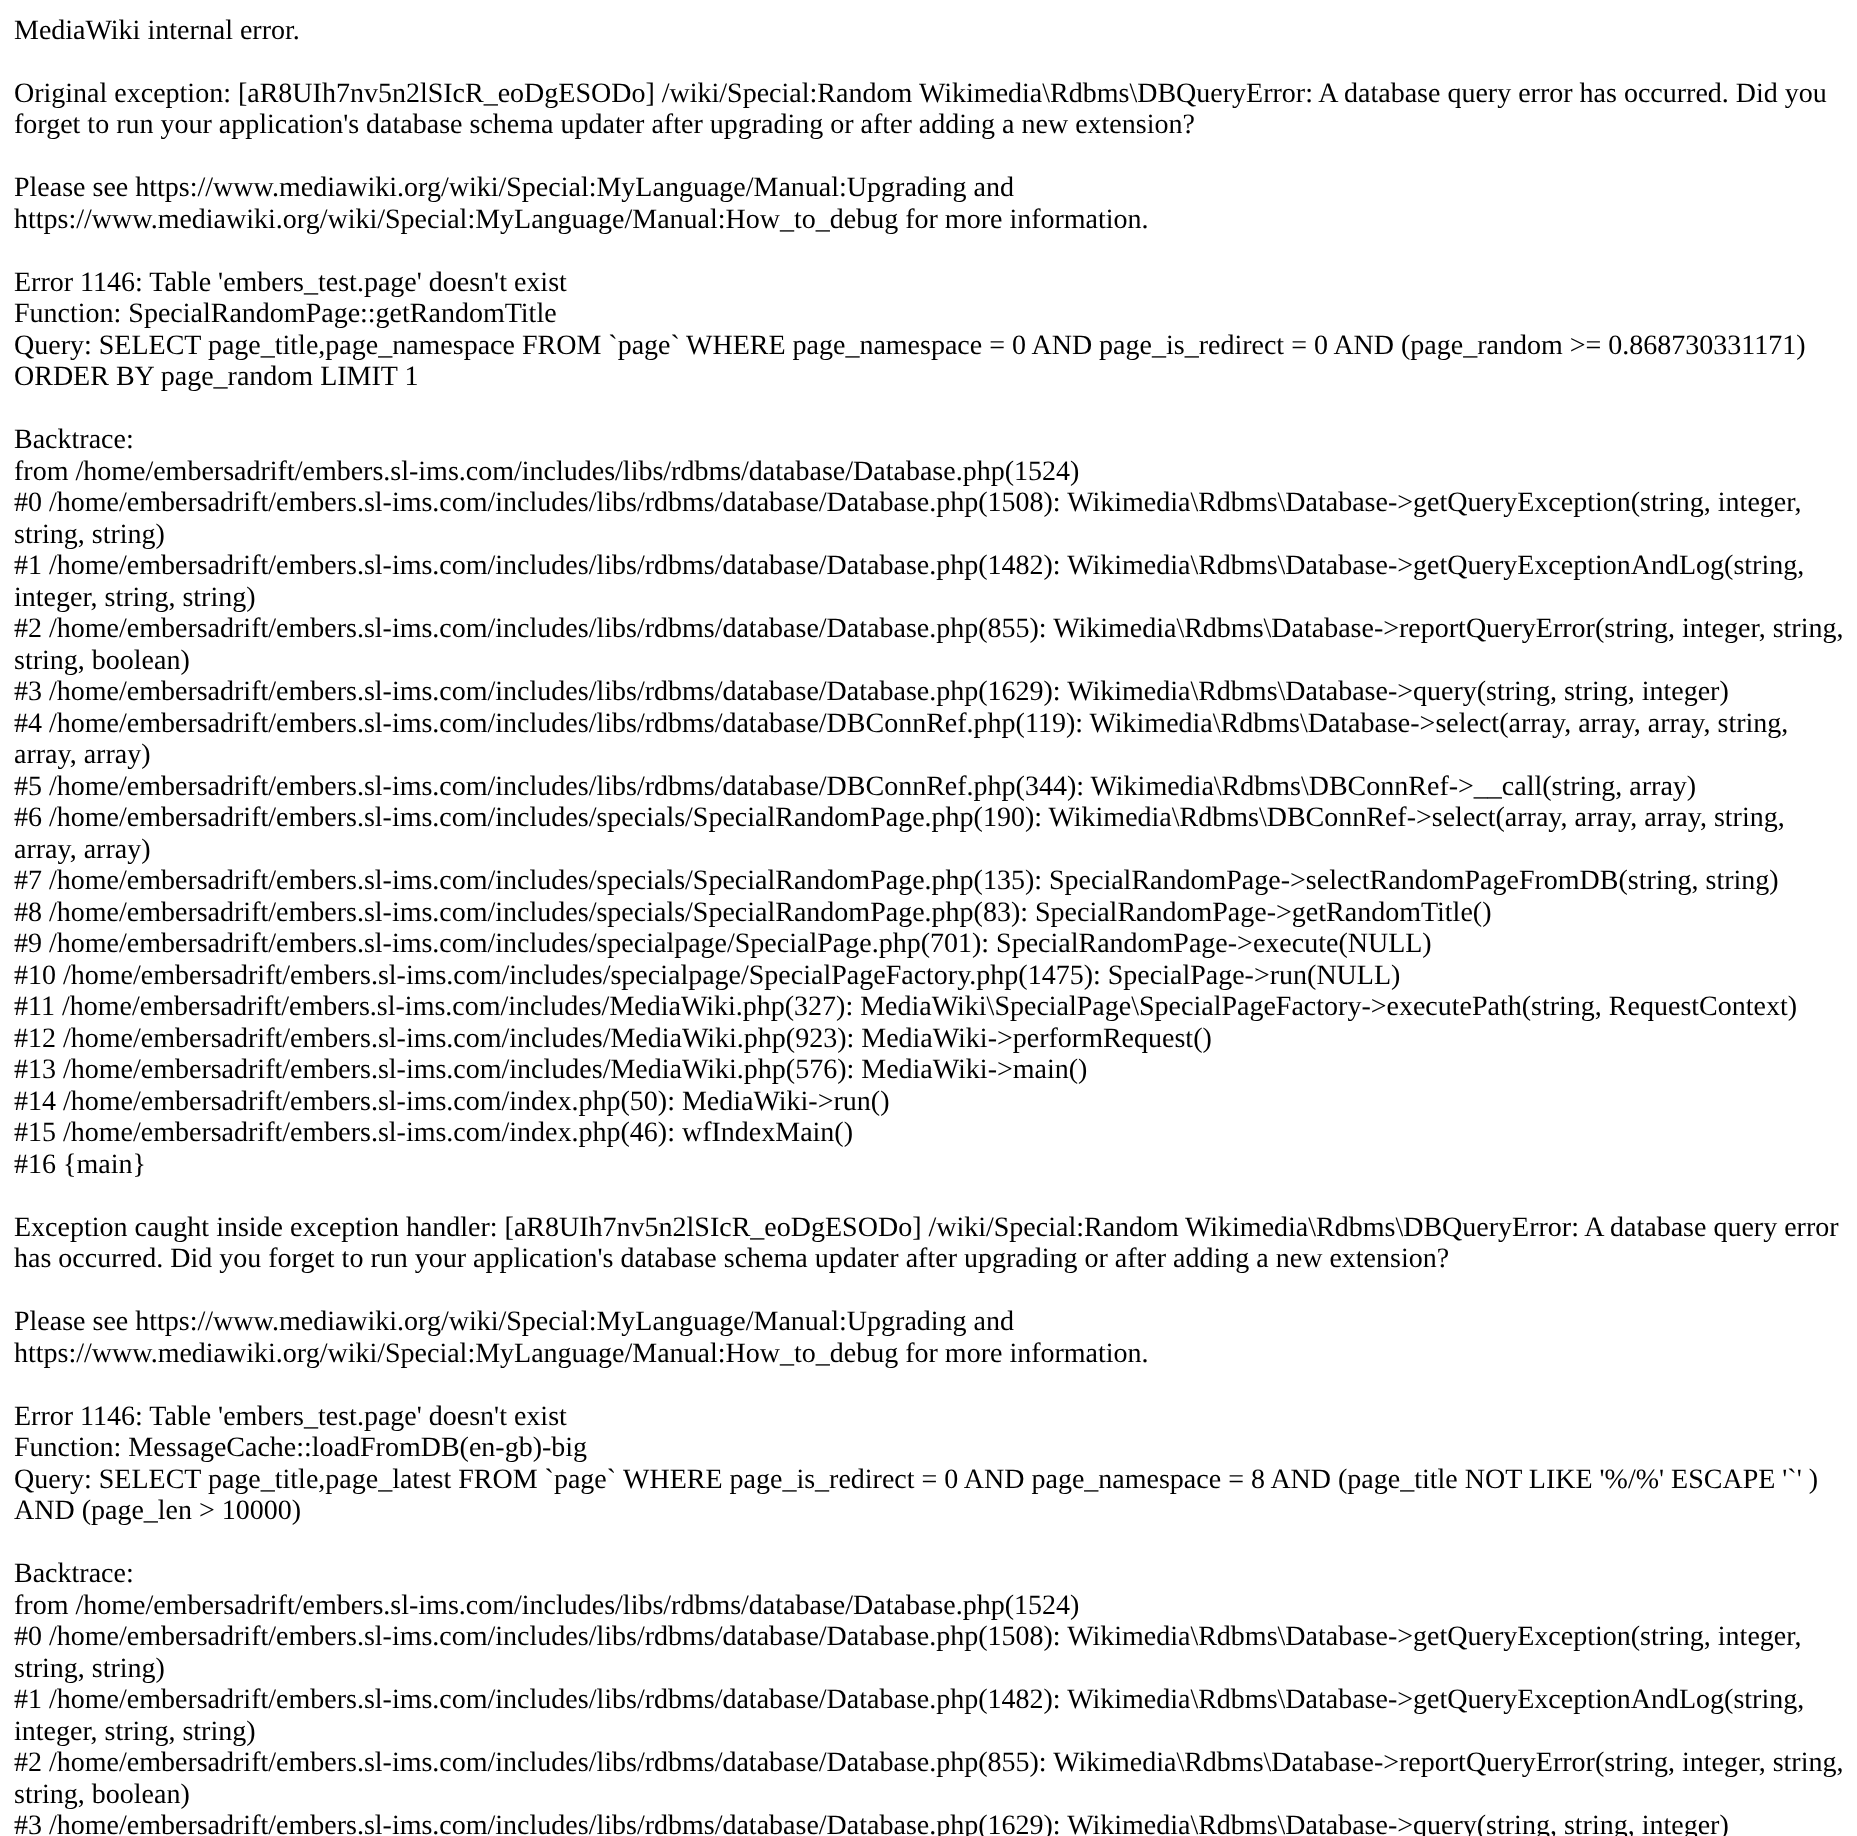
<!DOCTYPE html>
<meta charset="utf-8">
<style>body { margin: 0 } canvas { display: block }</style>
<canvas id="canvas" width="1857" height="1836"></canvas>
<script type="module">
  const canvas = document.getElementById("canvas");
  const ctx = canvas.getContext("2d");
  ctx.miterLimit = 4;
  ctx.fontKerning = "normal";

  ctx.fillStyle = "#ffffff";
  ctx.fillRect(0, 0, 1857, 1836);
  ctx.font = "28px Liberation Serif";
  ctx.fillStyle = "#000000";
  ctx.fillText("MediaWiki internal error.", 14, 39);
  ctx.fillText("Original exception: [aR8UIh7nv5n2lSIcR_eoDgESODo] /wiki/Special:Random", 14, 102);
  ctx.fillText("Wikimedia\\Rdbms\\DBQueryError: A database query error has occurred. Did you", 919, 102);
  ctx.fillText("forget to run your application's database schema updater after upgrading or after adding a new extension?", 14, 133);
  ctx.fillText("Please see https://www.mediawiki.org/wiki/Special:MyLanguage/Manual:Upgrading and", 14, 196);
  ctx.fillText("https://www.mediawiki.org/wiki/Special:MyLanguage/Manual:How_to_debug for more information.", 14, 228);
  ctx.fillText("Error 1146: Table 'embers_test.page' doesn't exist", 14, 291);
  ctx.fillText("Function: SpecialRandomPage::getRandomTitle", 14, 322);
  ctx.fillText("Query: SELECT page_title,page_namespace FROM `page`", 14, 354);
  ctx.fillText("WHERE page_namespace = 0 AND page_is_redirect = 0 AND (page_random >= 0.868730331171)", 686, 354);
  ctx.fillText("ORDER BY page_random LIMIT 1", 14, 385);
  ctx.fillText("Backtrace:", 14, 448);
  ctx.fillText("from /home/embersadrift/embers.sl-ims.com/includes/libs/rdbms/database/Database.php(1524)", 14, 480);
  ctx.fillText("#0 /home/embersadrift/embers.sl-ims.com/includes/libs/rdbms/database/Database.php(1508): Wikimedia\\Rdbms\\Database->getQueryException(string, integer,", 14, 511);
  ctx.fillText("string, string)", 14, 543);
  ctx.fillText("#1 /home/embersadrift/embers.sl-ims.com/includes/libs/rdbms/database/Database.php(1482): Wikimedia\\Rdbms\\Database->getQueryExceptionAndLog(string,", 14, 574);
  ctx.fillText("integer, string, string)", 14, 606);
  ctx.fillText("#2 /home/embersadrift/embers.sl-ims.com/includes/libs/rdbms/database/Database.php(855): Wikimedia\\Rdbms\\Database->reportQueryError(string, integer, string,", 14, 637);
  ctx.fillText("string, boolean)", 14, 669);
  ctx.fillText("#3 /home/embersadrift/embers.sl-ims.com/includes/libs/rdbms/database/Database.php(1629): Wikimedia\\Rdbms\\Database->query(string, string, integer)", 14, 700);
  ctx.fillText("#4 /home/embersadrift/embers.sl-ims.com/includes/libs/rdbms/database/DBConnRef.php(119): Wikimedia\\Rdbms\\Database->select(array, array, array, string,", 14, 732);
  ctx.fillText("array, array)", 14, 763);
  ctx.fillText("#5 /home/embersadrift/embers.sl-ims.com/includes/libs/rdbms/database/DBConnRef.php(344): Wikimedia\\Rdbms\\DBConnRef->__call(string, array)", 14, 795);
  ctx.fillText("#6 /home/embersadrift/embers.sl-ims.com/includes/specials/SpecialRandomPage.php(190): Wikimedia\\Rdbms\\DBConnRef->select(array, array, array, string,", 14, 826);
  ctx.fillText("array, array)", 14, 858);
  ctx.fillText("#7 /home/embersadrift/embers.sl-ims.com/includes/specials/SpecialRandomPage.php(135): SpecialRandomPage->selectRandomPageFromDB(string, string)", 14, 889);
  ctx.fillText("#8 /home/embersadrift/embers.sl-ims.com/includes/specials/SpecialRandomPage.php(83): SpecialRandomPage->getRandomTitle()", 14, 921);
  ctx.fillText("#9 /home/embersadrift/embers.sl-ims.com/includes/specialpage/SpecialPage.php(701): SpecialRandomPage->execute(NULL)", 14, 952);
  ctx.fillText("#10 /home/embersadrift/embers.sl-ims.com/includes/specialpage/SpecialPageFactory.php(1475): SpecialPage->run(NULL)", 14, 984);
  ctx.fillText("#11 /home/embersadrift/embers.sl-ims.com/includes/MediaWiki.php(327): MediaWiki\\SpecialPage\\SpecialPageFactory->executePath(string, RequestContext)", 14, 1015);
  ctx.fillText("#12 /home/embersadrift/embers.sl-ims.com/includes/MediaWiki.php(923): MediaWiki->performRequest()", 14, 1047);
  ctx.fillText("#13 /home/embersadrift/embers.sl-ims.com/includes/MediaWiki.php(576): MediaWiki->main()", 14, 1078);
  ctx.fillText("#14 /home/embersadrift/embers.sl-ims.com/index.php(50): MediaWiki->run()", 14, 1110);
  ctx.fillText("#15 /home/embersadrift/embers.sl-ims.com/index.php(46): wfIndexMain()", 14, 1141);
  ctx.fillText("#16 {main}", 14, 1173);
  ctx.fillText("Exception caught inside exception handler: [aR8UIh7nv5n2lSIcR_eoDgESODo] /wiki/Special:Random", 14, 1236);
  ctx.fillText("Wikimedia\\Rdbms\\DBQueryError: A database query error", 1185, 1236);
  ctx.fillText("has occurred. Did you forget to run your application's database schema updater after upgrading or after adding a new extension?", 14, 1267);
  ctx.fillText("Please see https://www.mediawiki.org/wiki/Special:MyLanguage/Manual:Upgrading and", 14, 1330);
  ctx.fillText("https://www.mediawiki.org/wiki/Special:MyLanguage/Manual:How_to_debug for more information.", 14, 1362);
  ctx.fillText("Error 1146: Table 'embers_test.page' doesn't exist", 14, 1425);
  ctx.fillText("Function: MessageCache::loadFromDB(en-gb)-big", 14, 1456);
  ctx.fillText("Query: SELECT page_title,page_latest FROM `page`", 14, 1488);
  ctx.fillText("WHERE page_is_redirect = 0 AND page_namespace = 8 AND (page_title NOT LIKE '%/%' ESCAPE '`' )", 623, 1488);
  ctx.fillText("AND (page_len > 10000)", 14, 1519);
  ctx.fillText("Backtrace:", 14, 1582);
  ctx.fillText("from /home/embersadrift/embers.sl-ims.com/includes/libs/rdbms/database/Database.php(1524)", 14, 1614);
  ctx.fillText("#0 /home/embersadrift/embers.sl-ims.com/includes/libs/rdbms/database/Database.php(1508): Wikimedia\\Rdbms\\Database->getQueryException(string, integer,", 14, 1645);
  ctx.fillText("string, string)", 14, 1677);
  ctx.fillText("#1 /home/embersadrift/embers.sl-ims.com/includes/libs/rdbms/database/Database.php(1482): Wikimedia\\Rdbms\\Database->getQueryExceptionAndLog(string,", 14, 1708);
  ctx.fillText("integer, string, string)", 14, 1740);
  ctx.fillText("#2 /home/embersadrift/embers.sl-ims.com/includes/libs/rdbms/database/Database.php(855): Wikimedia\\Rdbms\\Database->reportQueryError(string, integer, string,", 14, 1771);
  ctx.fillText("string, boolean)", 14, 1803);
  ctx.fillText("#3 /home/embersadrift/embers.sl-ims.com/includes/libs/rdbms/database/Database.php(1629): Wikimedia\\Rdbms\\Database->query(string, string, integer)", 14, 1834);
</script>
